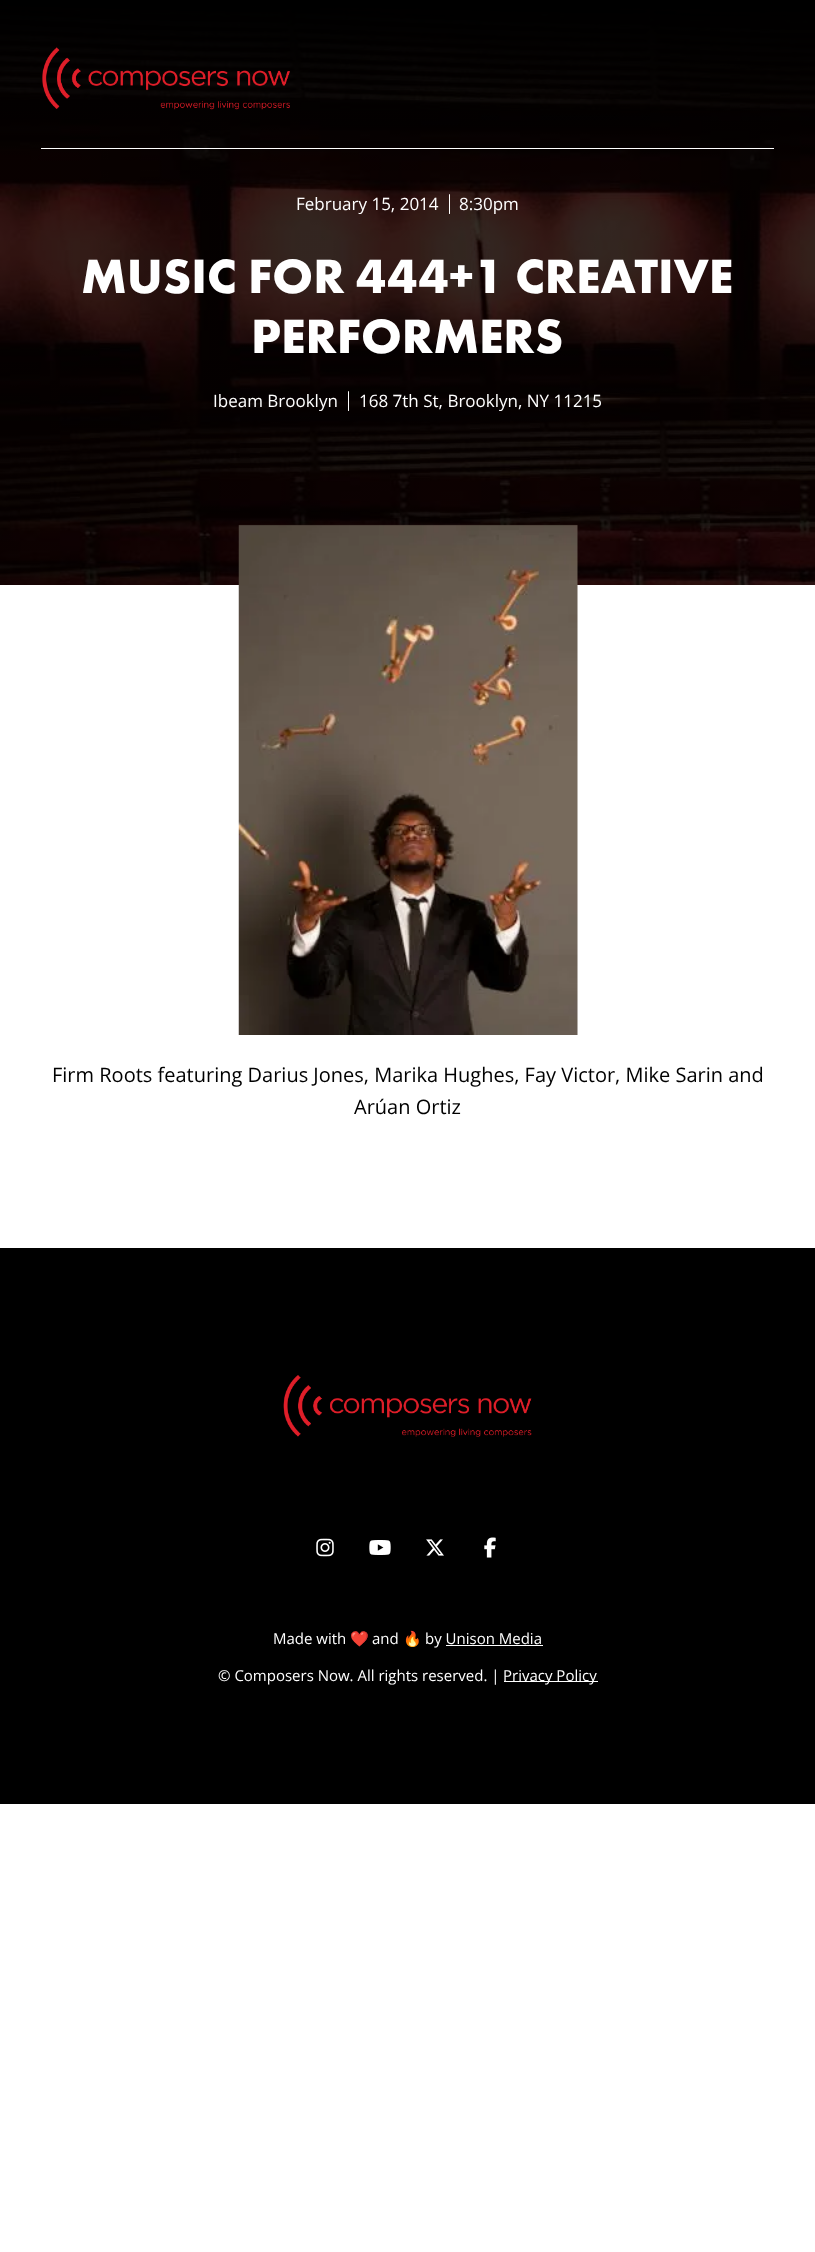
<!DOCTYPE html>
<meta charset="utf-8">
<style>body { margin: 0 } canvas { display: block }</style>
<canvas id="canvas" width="815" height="2252"></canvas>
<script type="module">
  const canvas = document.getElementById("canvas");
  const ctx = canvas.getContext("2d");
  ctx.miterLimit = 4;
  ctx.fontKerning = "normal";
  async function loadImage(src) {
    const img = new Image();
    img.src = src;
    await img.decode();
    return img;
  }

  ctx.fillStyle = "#ffffff";
  ctx.fillRect(0, 0, 815, 2252);
  ctx.drawImage(await loadImage("img2.png"), 0, 0, 815, 585);
  ctx.fillRect(41, 148, 733, 1);
  ctx.drawImage(await loadImage("img1.png"), 42, 47, 248, 63);
  ctx.font = "17px Open Sans";
  ctx.fillText("February 15, 2014", 296, 210);
  ctx.beginPath();
  ctx.roundRect(449, 194, 1, 20, 0.5);
  ctx.fill();
  ctx.fillText("8:30pm", 459, 210);
  ctx.font = "bold 50px Futura PT";
  ctx.fillText("MUSIC FOR 444+1 CREATIVE", 81, 293);
  ctx.fillText("PERFORMERS", 251, 353);
  ctx.font = "17px Open Sans";
  ctx.fillText("Ibeam Brooklyn", 213, 407);
  ctx.beginPath();
  ctx.roundRect(348, 391, 1, 20, 0.5);
  ctx.fill();
  ctx.fillText("168 7th St, Brooklyn, NY 11215", 359, 407);
  ctx.drawImage(await loadImage("img3.png"), 238, 524, 340, 511);
  ctx.font = "20px Open Sans";
  ctx.fillStyle = "#000000";
  ctx.fillText("Firm Roots featuring Darius Jones, Marika Hughes, Fay Victor, Mike Sarin and", 52, 1082);
  ctx.fillText("Arúan Ortiz", 354, 1114);
  ctx.fillRect(0, 1248, 815, 556);
  ctx.drawImage(await loadImage("img4.png"), 283, 1375, 249, 62);
  ctx.drawImage(await loadImage("img5.png"), 316, 1538, 18, 19);
  ctx.drawImage(await loadImage("img6.png"), 369, 1540, 22, 15);
  ctx.drawImage(await loadImage("img7.png"), 426, 1539, 18, 17);
  ctx.drawImage(await loadImage("img8.png"), 484, 1537, 12, 21);
  ctx.font = "15px Open Sans";
  ctx.fillStyle = "#ffffff";
  ctx.fillText("Made with", 273, 1644);
  ctx.font = "15px Noto Color Emoji";
  ctx.fillText("❤️", 350, 1644);
  ctx.font = "15px Open Sans";
  ctx.fillText("and", 372, 1644);
  ctx.font = "15px Noto Color Emoji";
  ctx.fillText("🔥", 403, 1644);
  ctx.font = "15px Open Sans";
  ctx.fillText("by Unison Media", 425, 1644);
  ctx.fillRect(446, 1645, 97, 1);
  ctx.fillText("© Composers Now. All rights reserved. |", 218, 1681);
  ctx.fillRect(504, 1681, 94, 1);
  ctx.fillText("Privacy Policy", 503, 1681);
</script>
